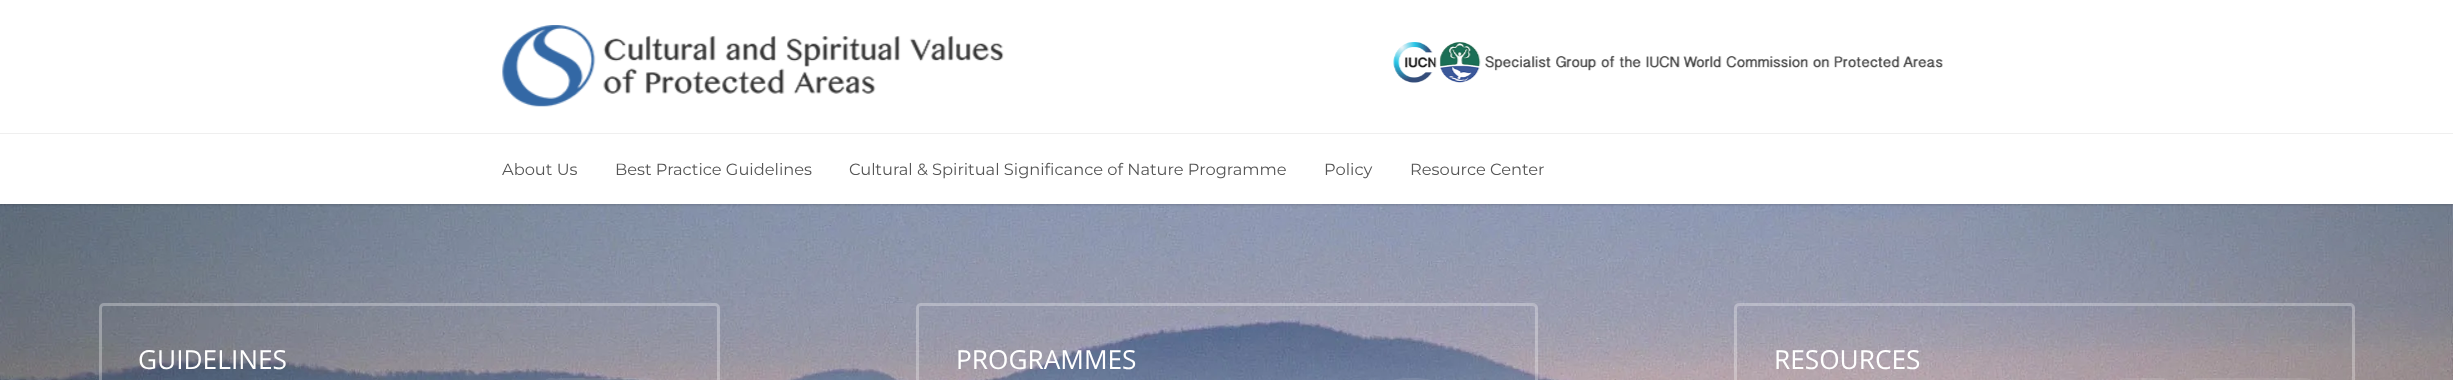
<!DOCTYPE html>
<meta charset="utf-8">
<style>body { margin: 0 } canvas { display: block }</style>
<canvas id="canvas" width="2453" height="380"></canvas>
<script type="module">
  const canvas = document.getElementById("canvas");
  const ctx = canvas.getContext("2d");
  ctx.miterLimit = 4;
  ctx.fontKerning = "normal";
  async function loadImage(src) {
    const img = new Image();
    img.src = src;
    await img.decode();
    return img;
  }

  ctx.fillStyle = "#ffffff";
  ctx.fillRect(0, 0, 2453, 380);
  ctx.drawImage(await loadImage("img3.png"), 0, 204, 2453, 176);
  ctx.fillStyle = "rgba(0, 0, 0, 0.16)";
  ctx.filter = "blur(1px)";
  ctx.beginPath();
  ctx.rect(-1, -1, 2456, 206);
  ctx.fill();
  ctx.filter = "none";
  ctx.fillStyle = "#ffffff";
  ctx.fillRect(0, 0, 2453, 204);
  ctx.drawImage(await loadImage("img1.png"), 502, 25, 502, 82);
  ctx.drawImage(await loadImage("img2.png"), 1393, 42, 550, 41);
  ctx.fillStyle = "#efefef";
  ctx.fillRect(0, 133, 2453, 1);
  ctx.font = "100 16.25px Montserrat";
  ctx.fillStyle = "#555555";
  ctx.fillText("About Us", 502, 175);
  ctx.fillText("Best Practice Guidelines", 615, 175);
  ctx.fillText("Cultural & Spiritual Significance of Nature Programme", 849, 175);
  ctx.fillText("Policy", 1324, 175);
  ctx.fillText("Resource Center", 1410, 175);
  ctx.beginPath();
  ctx.roundRect(100.5, 304.5, 618, 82, 3.5);
  ctx.strokeStyle = "rgba(255, 255, 255, 0.3)";
  ctx.lineWidth = 3;
  ctx.stroke();
  ctx.font = "26.25px Open Sans";
  ctx.fillStyle = "#ffffff";
  ctx.fillText("GUIDELINES", 138, 369);
  ctx.drawImage(await loadImage("img4.png"), 546, 378, 108, 2);
  ctx.beginPath();
  ctx.roundRect(917.5, 304.5, 619, 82, 3.5);
  ctx.stroke();
  ctx.fillText("PROGRAMMES", 956, 369);
  ctx.drawImage(await loadImage("img5.png"), 1394, 378, 36, 2);
  ctx.beginPath();
  ctx.roundRect(1735.5, 304.5, 618, 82, 3.5);
  ctx.stroke();
  ctx.fillText("RESOURCES", 1774, 369);
  ctx.drawImage(await loadImage("img6.png"), 2120, 378, 190, 2);
</script>
